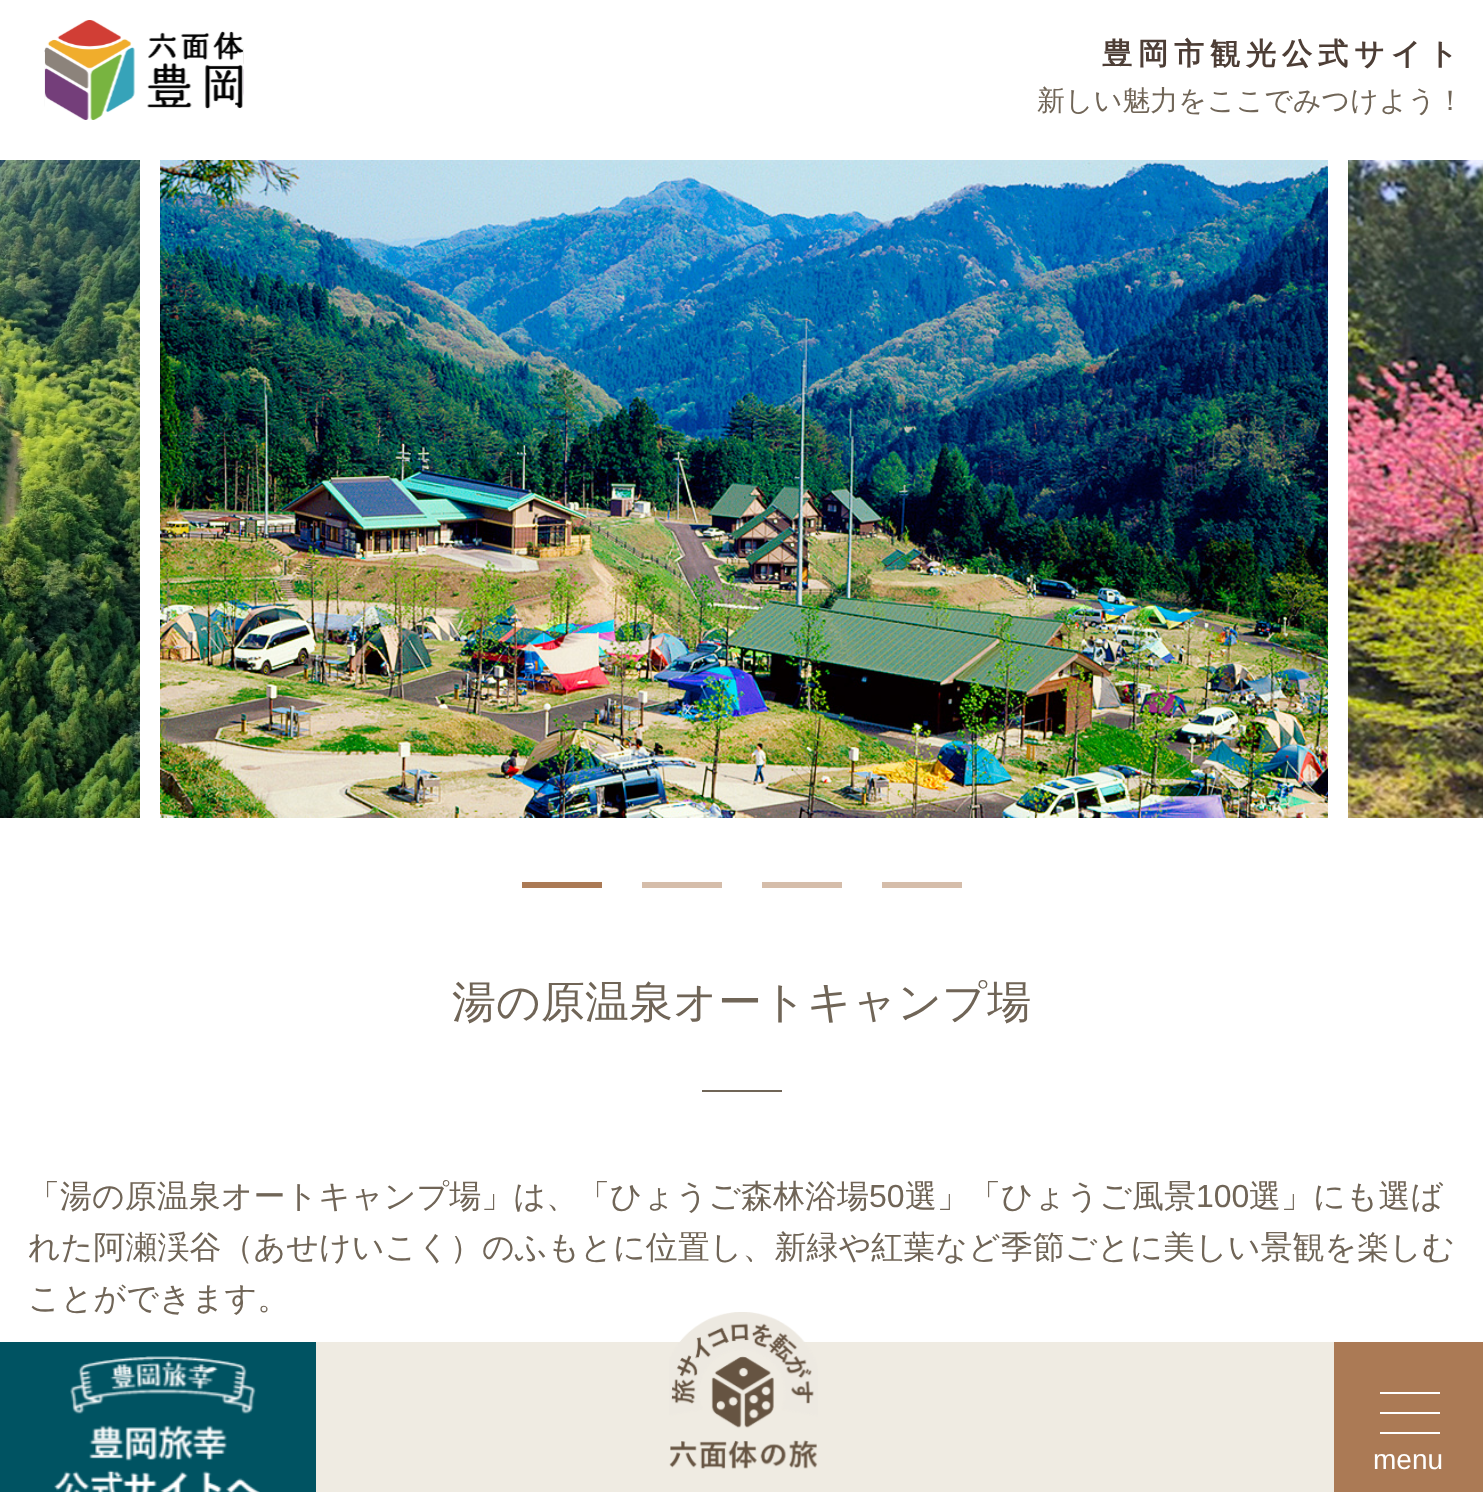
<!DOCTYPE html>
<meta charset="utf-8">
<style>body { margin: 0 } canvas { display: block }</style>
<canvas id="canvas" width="1483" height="1492"></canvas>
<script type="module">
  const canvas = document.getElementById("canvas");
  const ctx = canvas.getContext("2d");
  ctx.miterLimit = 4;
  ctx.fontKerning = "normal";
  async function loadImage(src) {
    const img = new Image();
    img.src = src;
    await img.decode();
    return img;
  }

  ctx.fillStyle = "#ffffff";
  ctx.fillRect(0, 0, 1483, 1492);
  ctx.drawImage(await loadImage("img1.png"), 44, 20, 200, 100);
  ctx.letterSpacing = "6px";
  ctx.font = "bold 30px WenQuanYi Zen Hei";
  ctx.fillStyle = "#4d3e36";
  ctx.fillText("豊岡市観光公式サイト", 1102, 64);
  ctx.letterSpacing = "0px";
  ctx.font = "500 28px WenQuanYi Zen Hei";
  ctx.fillStyle = "#706557";
  ctx.fillText("新しい魅力をここでみつけよう！", 1037, 110);
  ctx.drawImage(await loadImage("img2.png"), 0, 160, 140, 658);
  ctx.drawImage(await loadImage("img3.png"), 160, 160, 1168, 658);
  ctx.drawImage(await loadImage("img4.png"), 1348, 160, 135, 658);
  ctx.fillStyle = "#ab7a55";
  ctx.fillRect(522, 882, 80, 6);
  ctx.fillStyle = "#d5bdaa";
  ctx.fillRect(642, 882, 80, 6);
  ctx.fillRect(762, 882, 80, 6);
  ctx.fillRect(882, 882, 80, 6);
  ctx.font = "500 44px WenQuanYi Zen Hei";
  ctx.fillStyle = "#706557";
  ctx.fillText("湯の原温泉オートキャンプ場", 452, 1017);
  ctx.fillRect(702, 1090, 80, 2);
  ctx.font = "500 32px WenQuanYi Zen Hei";
  ctx.fillText("「湯の原温泉オートキャンプ場」は、「ひょうご森林浴場", 28, 1207);
  ctx.font = "32px Liberation Sans";
  ctx.fillText("50", 869, 1207);
  ctx.font = "500 32px WenQuanYi Zen Hei";
  ctx.fillText("選」「ひょうご風景", 905, 1207);
  ctx.font = "32px Liberation Sans";
  ctx.fillText("100", 1196, 1207);
  ctx.font = "500 32px WenQuanYi Zen Hei";
  ctx.fillText("選」にも選ば", 1249, 1207);
  ctx.fillText("れた阿瀬渓谷（あせけいこく）のふもとに位置し、新緑や紅葉など季節ごとに美しい景観を楽しむ", 28, 1258);
  ctx.fillText("ことができます。", 28, 1309);
  ctx.fillStyle = "#efebe2";
  ctx.fillRect(316, 1342, 1018, 150);
  ctx.fillStyle = "#005362";
  ctx.fillRect(0, 1342, 316, 150);
  ctx.drawImage(await loadImage("img5.png"), 54, 1356, 206, 136);
  ctx.drawImage(await loadImage("img6.png"), 669, 1312, 149, 157);
  ctx.fillStyle = "#ab7a55";
  ctx.fillRect(1334, 1342, 149, 150);
  ctx.fillStyle = "#ffffff";
  ctx.fillRect(1380, 1412, 60, 2);
  ctx.fillRect(1380, 1392, 60, 2);
  ctx.fillRect(1380, 1432, 60, 2);
  ctx.font = "28px Liberation Sans";
  ctx.fillText("menu", 1373, 1469);
</script>
